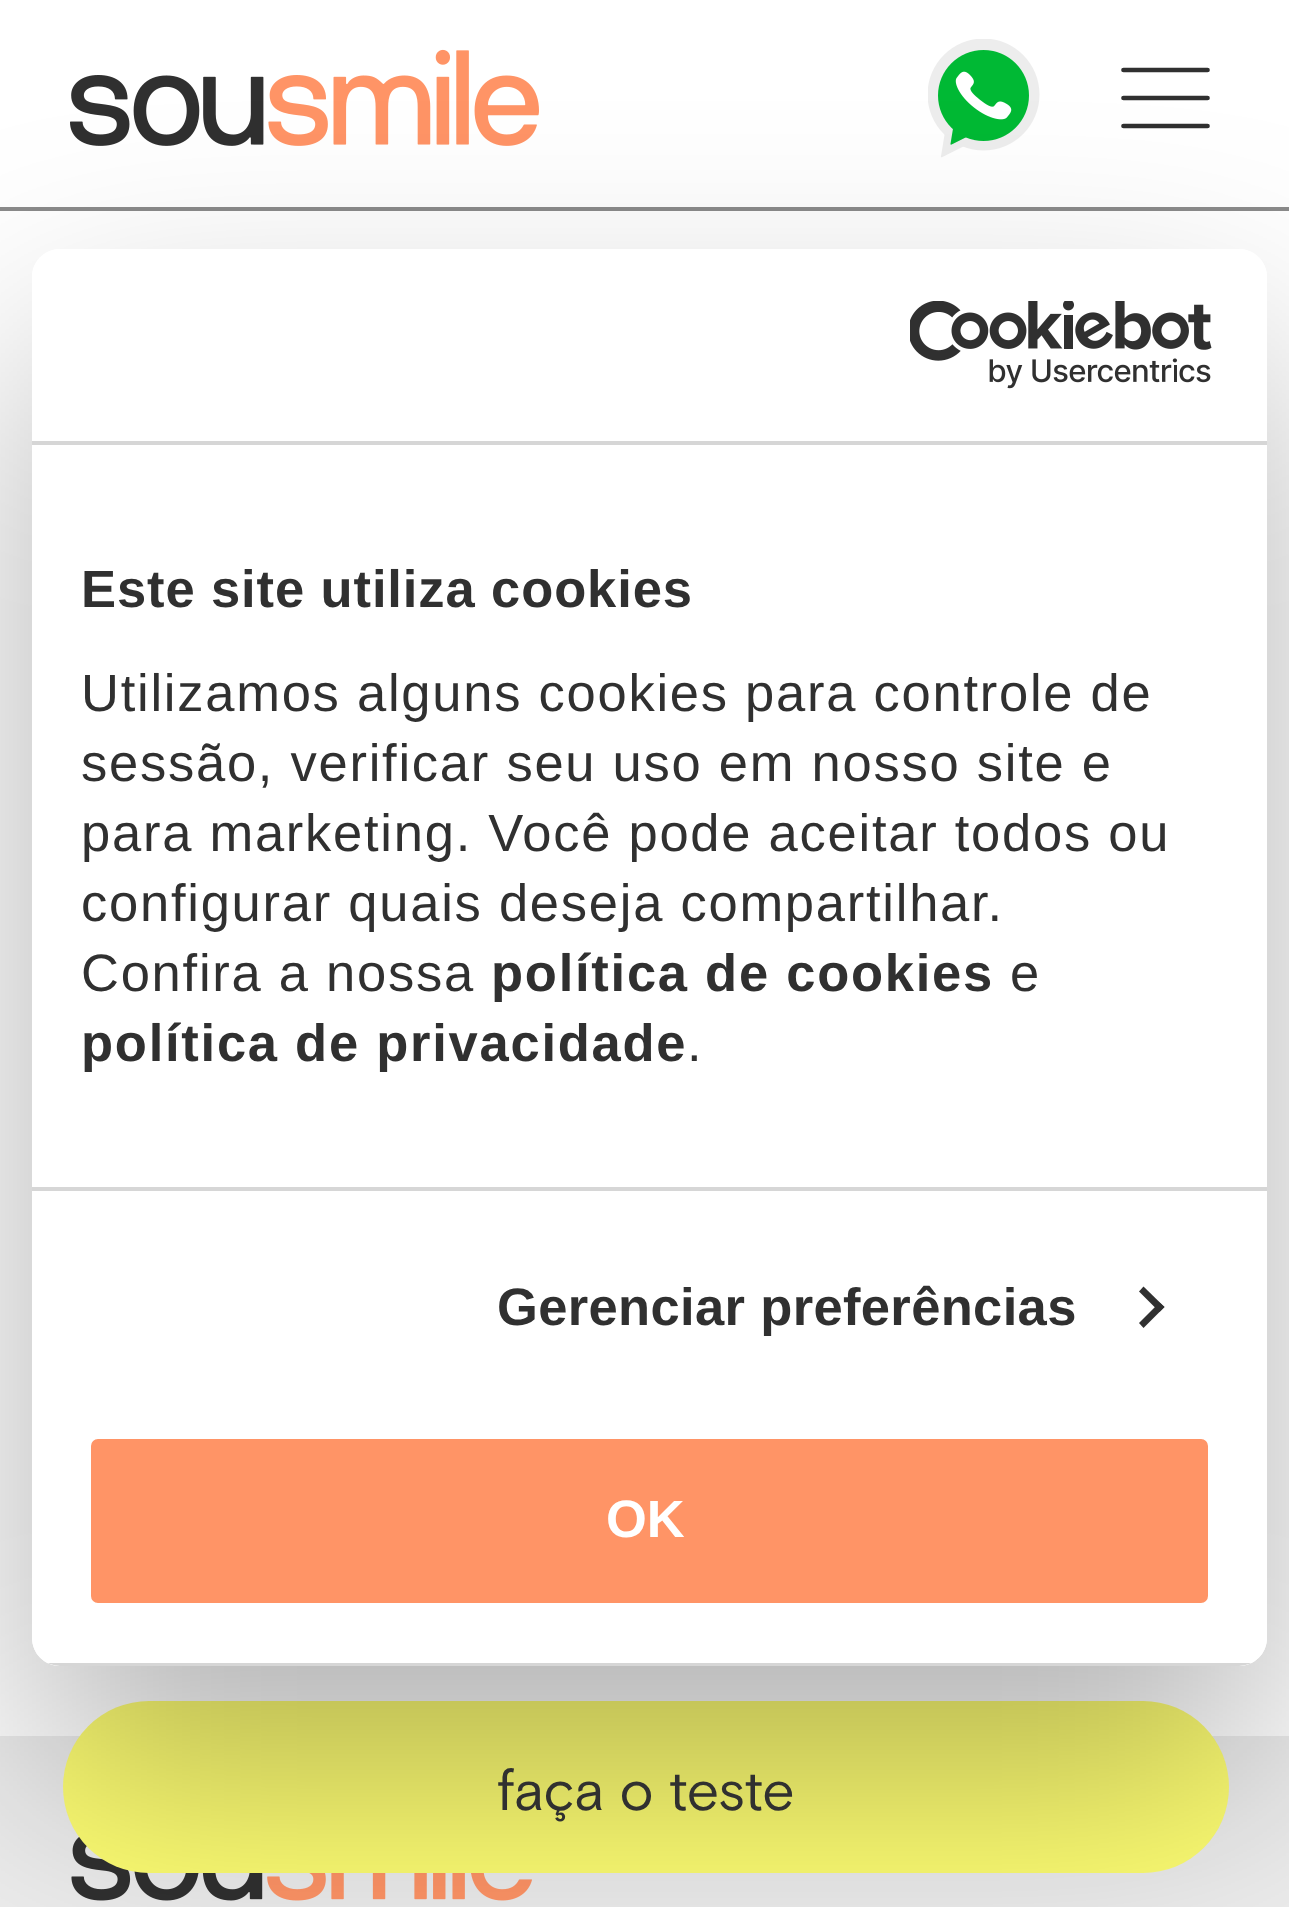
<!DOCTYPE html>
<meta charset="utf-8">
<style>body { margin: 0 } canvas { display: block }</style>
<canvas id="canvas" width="1289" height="1907"></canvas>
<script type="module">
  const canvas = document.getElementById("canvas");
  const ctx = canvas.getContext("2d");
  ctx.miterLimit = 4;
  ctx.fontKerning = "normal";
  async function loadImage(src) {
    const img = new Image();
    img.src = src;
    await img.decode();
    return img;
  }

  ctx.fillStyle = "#ffffff";
  ctx.fillRect(0, 0, 1289, 1907);
  ctx.fillStyle = "#ededed";
  ctx.fillRect(0, 1736, 1289, 171);
  ctx.drawImage(await loadImage("img2.png"), 71, 1837, 461, 64);
  ctx.fillStyle = "#8b8b8b";
  ctx.fillRect(0, 207, 1289, 4);
  ctx.drawImage(await loadImage("img3.png"), 70, 49, 469, 97);
  ctx.drawImage(await loadImage("img4.png"), 928, 39, 112, 119);
  ctx.beginPath();
  ctx.moveTo(1123.5, 70);
  ctx.lineTo(1207.5, 70);
  ctx.strokeStyle = "#303030";
  ctx.lineWidth = 4.7;
  ctx.lineCap = "round";
  ctx.lineJoin = "round";
  ctx.stroke();
  ctx.beginPath();
  ctx.moveTo(1123.5, 98);
  ctx.lineTo(1207.5, 98);
  ctx.stroke();
  ctx.beginPath();
  ctx.moveTo(1123.5, 126);
  ctx.lineTo(1207.5, 126);
  ctx.stroke();
  ctx.fillStyle = "#ffff73";
  ctx.beginPath();
  ctx.roundRect(63, 1701, 1166, 172, 86);
  ctx.fill();
  ctx.save();
  ctx.beginPath();
  ctx.moveTo(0, 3);
  ctx.lineTo(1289, 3);
  ctx.lineTo(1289, 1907);
  ctx.lineTo(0, 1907);
  ctx.closePath();
  ctx.moveTo(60, 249);
  ctx.lineTo(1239, 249);
  ctx.bezierCurveTo(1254.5, 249, 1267, 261.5, 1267, 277);
  ctx.lineTo(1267, 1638);
  ctx.bezierCurveTo(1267, 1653.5, 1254.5, 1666, 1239, 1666);
  ctx.lineTo(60, 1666);
  ctx.bezierCurveTo(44.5, 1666, 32, 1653.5, 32, 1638);
  ctx.lineTo(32, 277);
  ctx.bezierCurveTo(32, 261.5, 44.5, 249, 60, 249);
  ctx.closePath();
  ctx.clip("evenodd");
  ctx.fillStyle = "rgba(0, 0, 0, 0.3)";
  ctx.filter = "blur(119px)";
  ctx.beginPath();
  ctx.roundRect(32, 361, 1235, 1417, 28);
  ctx.fill();
  ctx.filter = "none";
  ctx.restore();
  ctx.fillStyle = "#ffffff";
  ctx.beginPath();
  ctx.roundRect(32, 249, 1235, 1417, 28);
  ctx.fill();
  ctx.fillStyle = "#d6d6d6";
  ctx.fillRect(32, 441, 1235, 4);
  ctx.drawImage(await loadImage("img1.png"), 910, 301, 302, 88);
  ctx.fillRect(32, 1187, 1235, 4);
  ctx.letterSpacing = "0.9px";
  ctx.font = "bold 52.5px Liberation Sans";
  ctx.fillStyle = "#303030";
  ctx.fillText("Este site utiliza cookies", 81, 607);
  ctx.letterSpacing = "1.75px";
  ctx.font = "52.5px Liberation Sans";
  ctx.fillText("Utilizamos alguns cookies para controle de", 81, 711);
  ctx.fillText("sessão, verificar seu uso em nosso site e", 81, 781);
  ctx.fillText("para marketing. Você pode aceitar todos ou", 81, 851);
  ctx.fillText("configurar quais deseja compartilhar.", 81, 921);
  ctx.fillText("Confira a nossa", 81, 991);
  ctx.font = "bold 52.5px Liberation Sans";
  ctx.fillText("política de cookies", 491, 991);
  ctx.font = "52.5px Liberation Sans";
  ctx.fillText("e", 1010, 991);
  ctx.font = "bold 52.5px Liberation Sans";
  ctx.fillText("política de privacidade", 81, 1061);
  ctx.font = "52.5px Liberation Sans";
  ctx.fillText(".", 687, 1061);
  ctx.letterSpacing = "0.35px";
  ctx.font = "bold 52.5px Liberation Sans";
  ctx.fillText("Gerenciar preferências", 497, 1325);
  ctx.beginPath();
  ctx.moveTo(1143.5, 1286.5);
  ctx.lineTo(1164.5, 1307);
  ctx.lineTo(1159.5, 1312);
  ctx.lineTo(1139, 1291.5);
  ctx.closePath();
  ctx.fill();
  ctx.beginPath();
  ctx.moveTo(1159.5, 1302.5);
  ctx.lineTo(1164.5, 1307);
  ctx.lineTo(1143.5, 1328);
  ctx.lineTo(1139, 1323);
  ctx.closePath();
  ctx.fill();
  ctx.save();
  ctx.beginPath();
  ctx.roundRect(32, 249, 1235, 1417, 28);
  ctx.clip();
  ctx.fillStyle = "#d6d6d6";
  ctx.fillRect(47, 1663, 1205, 3);
  ctx.restore();
  ctx.fillStyle = "#ff9466";
  ctx.beginPath();
  ctx.roundRect(87.5, 1435.5, 1124, 171, 10.5);
  ctx.fill();
  ctx.strokeStyle = "#ffffff";
  ctx.lineWidth = 7;
  ctx.lineJoin = "miter";
  ctx.stroke();
  ctx.letterSpacing = "0px";
  ctx.fillStyle = "#ffffff";
  ctx.fillText("OK", 606, 1537);
  ctx.font = "56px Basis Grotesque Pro";
  ctx.fillStyle = "#303030";
  ctx.fillText("faça o teste", 497, 1810);
</script>
